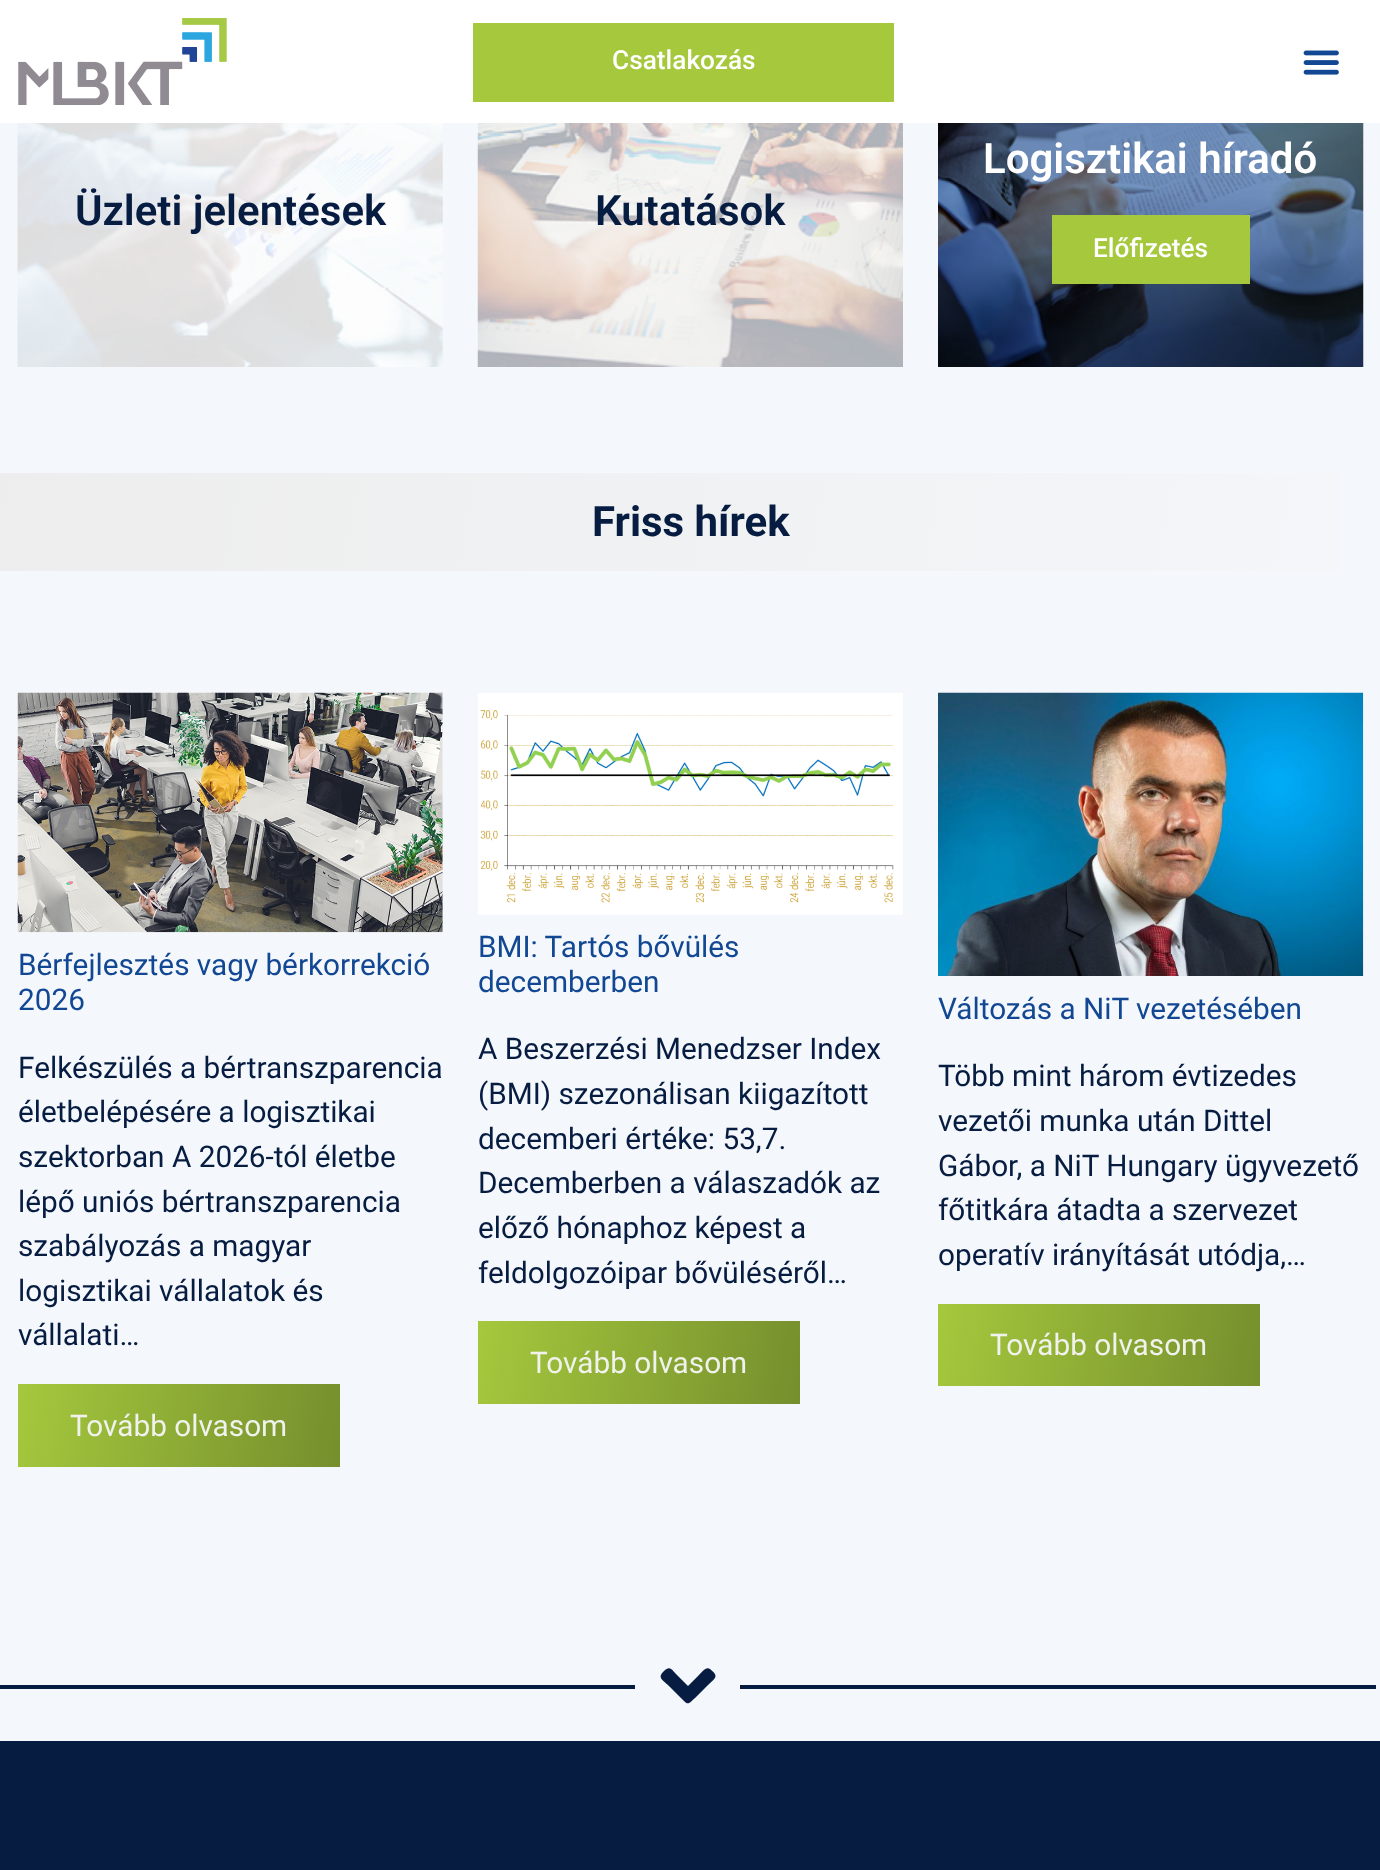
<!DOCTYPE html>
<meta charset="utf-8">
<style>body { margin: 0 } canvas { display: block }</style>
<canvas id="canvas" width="1380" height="1870"></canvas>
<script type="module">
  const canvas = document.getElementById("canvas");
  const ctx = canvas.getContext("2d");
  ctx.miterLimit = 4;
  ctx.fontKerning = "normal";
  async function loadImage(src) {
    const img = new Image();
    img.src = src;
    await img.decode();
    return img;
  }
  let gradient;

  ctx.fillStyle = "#f4f7fb";
  ctx.fillRect(0, 0, 1380, 1870);
  ctx.fillStyle = "#ffffff";
  ctx.fillRect(0, 0, 1380, 123);
  ctx.drawImage(await loadImage("img1.png"), 18, 18, 209, 87);
  ctx.fillStyle = "#a5c83d";
  ctx.fillRect(473, 23, 421, 79);
  ctx.font = "500 26.25px Roboto";
  ctx.fillStyle = "#ffffff";
  ctx.fillText("Csatlakozás", 612, 69);
  ctx.drawImage(await loadImage("img2.png"), 1303, 50, 36, 25);
  ctx.drawImage(await loadImage("img3.png"), 17, 123, 426, 244);
  ctx.font = "600 42px Roboto";
  ctx.fillStyle = "#071c41";
  ctx.fillText("Üzleti jelentések", 75, 225);
  ctx.drawImage(await loadImage("img4.png"), 477, 123, 426, 244);
  ctx.fillText("Kutatások", 595, 225);
  ctx.drawImage(await loadImage("img5.png"), 938, 123, 426, 244);
  ctx.fillStyle = "#ffffff";
  ctx.fillText("Logisztikai híradó", 983, 173);
  ctx.fillStyle = "#a5c83d";
  ctx.fillRect(1052, 215, 198, 69);
  ctx.font = "500 26.25px Roboto";
  ctx.fillStyle = "#ffffff";
  ctx.fillText("Előfizetés", 1093, 257);
  gradient = ctx.createLinearGradient(12, 402, 1368, 641);
  gradient.addColorStop(0, "#ededed");
  gradient.addColorStop(1, "#f4f6f9");
  ctx.fillStyle = gradient;
  ctx.fillRect(0, 473, 1339, 98);
  ctx.font = "bold 42px Roboto";
  ctx.fillStyle = "#071c41";
  ctx.fillText("Friss hírek", 592, 536);
  ctx.drawImage(await loadImage("img6.png"), 17, 692, 426, 241);
  ctx.font = "29.75px Roboto";
  ctx.fillStyle = "#124893";
  ctx.fillText("Bérfejlesztés vagy bérkorrekció", 18, 975);
  ctx.fillText("2026", 18, 1010);
  ctx.fillStyle = "#071c41";
  ctx.fillText("Felkészülés a bértranszparencia", 18, 1078);
  ctx.fillText("életbelépésére a logisztikai", 18, 1122);
  ctx.fillText("szektorban A 2026-tól életbe", 18, 1167);
  ctx.fillText("lépő uniós bértranszparencia", 18, 1212);
  ctx.fillText("szabályozás a magyar", 18, 1256);
  ctx.fillText("logisztikai vállalatok és", 18, 1301);
  ctx.fillText("vállalati…", 18, 1345);
  gradient = ctx.createLinearGradient(15, 1397, 342, 1454);
  gradient.addColorStop(0, "#a5c83d");
  gradient.addColorStop(1, "#758f2d");
  ctx.fillStyle = gradient;
  ctx.fillRect(18, 1384, 322, 83);
  ctx.fillStyle = "#f1f2ed";
  ctx.fillText("Tovább olvasom", 70, 1436);
  ctx.drawImage(await loadImage("img7.png"), 478, 693, 425, 222);
  ctx.fillStyle = "#124893";
  ctx.fillText("BMI: Tartós bővülés", 478, 957);
  ctx.fillText("decemberben", 478, 992);
  ctx.fillStyle = "#071c41";
  ctx.fillText("A Beszerzési Menedzser Index", 478, 1059);
  ctx.fillText("(BMI) szezonálisan kiigazított", 478, 1104);
  ctx.fillText("decemberi értéke: 53,7.", 478, 1149);
  ctx.fillText("Decemberben a válaszadók az", 478, 1193);
  ctx.fillText("előző hónaphoz képest a", 478, 1238);
  ctx.fillText("feldolgozóipar bővüléséről…", 478, 1283);
  gradient = ctx.createLinearGradient(476, 1334, 802, 1391);
  gradient.addColorStop(0, "#a5c83d");
  gradient.addColorStop(1, "#758f2d");
  ctx.fillStyle = gradient;
  ctx.fillRect(478, 1321, 322, 83);
  ctx.fillStyle = "#f1f2ed";
  ctx.fillText("Tovább olvasom", 530, 1373);
  ctx.drawImage(await loadImage("img8.png"), 938, 692, 426, 284);
  ctx.fillStyle = "#124893";
  ctx.fillText("Változás a NiT vezetésében", 938, 1019);
  ctx.fillStyle = "#071c41";
  ctx.fillText("Több mint három évtizedes", 938, 1086);
  ctx.fillText("vezetői munka után Dittel", 938, 1131);
  ctx.fillText("Gábor, a NiT Hungary ügyvezető", 938, 1176);
  ctx.fillText("főtitkára átadta a szervezet", 938, 1220);
  ctx.fillText("operatív irányítását utódja,…", 938, 1265);
  gradient = ctx.createLinearGradient(936, 1316, 1262, 1374);
  gradient.addColorStop(0, "#a5c83d");
  gradient.addColorStop(1, "#758f2d");
  ctx.fillStyle = gradient;
  ctx.fillRect(938, 1304, 322, 82);
  ctx.fillStyle = "#f1f2ed";
  ctx.fillText("Tovább olvasom", 990, 1355);
  ctx.fillStyle = "#071c41";
  ctx.fillRect(0, 1685, 635, 4);
  ctx.beginPath();
  ctx.moveTo(685, 1702);
  ctx.lineTo(670, 1687);
  ctx.bezierCurveTo(662, 1679, 657, 1678, 664, 1671);
  ctx.bezierCurveTo(670, 1665, 672, 1670, 677, 1675);
  ctx.lineTo(688, 1686);
  ctx.lineTo(699, 1675);
  ctx.bezierCurveTo(701, 1673, 706, 1666, 710, 1669);
  ctx.bezierCurveTo(720, 1677, 715, 1678, 706, 1687);
  ctx.lineTo(695, 1698);
  ctx.bezierCurveTo(692, 1700, 689, 1706, 685, 1702);
  ctx.closePath();
  ctx.fill();
  ctx.fillRect(740, 1685, 636, 4);
  ctx.fillRect(0, 1741, 1380, 129);
</script>
